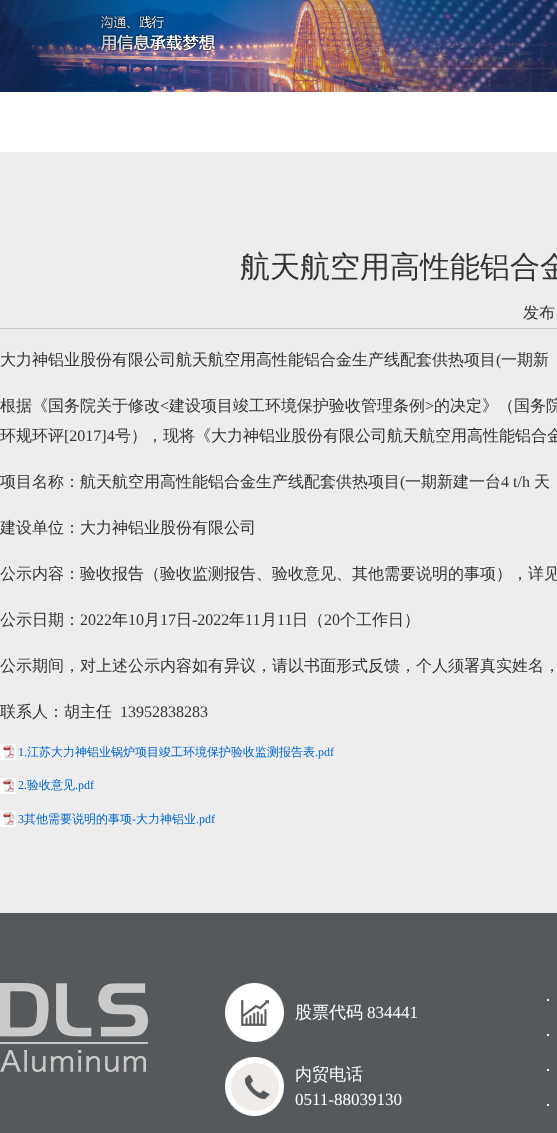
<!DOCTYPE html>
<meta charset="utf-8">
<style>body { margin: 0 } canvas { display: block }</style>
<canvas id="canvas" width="557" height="1133"></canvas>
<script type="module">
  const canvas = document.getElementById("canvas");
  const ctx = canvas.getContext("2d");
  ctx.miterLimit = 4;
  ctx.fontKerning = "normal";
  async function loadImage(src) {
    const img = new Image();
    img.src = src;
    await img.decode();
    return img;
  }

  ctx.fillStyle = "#ffffff";
  ctx.fillRect(0, 0, 557, 1133);
  ctx.drawImage(await loadImage("img1.png"), 0, 0, 557, 92);
  ctx.fillStyle = "#ededed";
  ctx.fillRect(0, 152, 557, 761);
  ctx.font = "500 30px WenQuanYi Zen Hei";
  ctx.fillStyle = "#333333";
  ctx.fillText("航天航空用高性能铝合金", 240, 277);
  ctx.fillStyle = "#cccccc";
  ctx.fillRect(0, 328, 557, 1);
  ctx.font = "500 16px WenQuanYi Zen Hei";
  ctx.fillStyle = "#333333";
  ctx.fillText("发布", 523, 318);
  ctx.fillText("大力神铝业股份有限公司航天航空用高性能铝合金生产线配套供热项目", 0, 365);
  ctx.font = "16px Liberation Serif";
  ctx.fillText("(", 496, 365);
  ctx.font = "500 16px WenQuanYi Zen Hei";
  ctx.fillText("一期新", 501, 365);
  ctx.fillText("根据《国务院关于修改", 0, 411);
  ctx.font = "16px Liberation Serif";
  ctx.fillText("<", 160, 411);
  ctx.font = "500 16px WenQuanYi Zen Hei";
  ctx.fillText("建设项目竣工环境保护验收管理条例", 169, 411);
  ctx.font = "16px Liberation Serif";
  ctx.fillText(">", 425, 411);
  ctx.font = "500 16px WenQuanYi Zen Hei";
  ctx.fillText("的决定》（国务院", 434, 411);
  ctx.fillText("环规环评", 0, 441);
  ctx.font = "16px Liberation Serif";
  ctx.fillText("[2017]4", 64, 441);
  ctx.font = "500 16px WenQuanYi Zen Hei";
  ctx.fillText("号），现将《大力神铝业股份有限公司航天航空用高性能铝合金", 115, 441);
  ctx.fillText("项目名称：航天航空用高性能铝合金生产线配套供热项目", 0, 487);
  ctx.font = "16px Liberation Serif";
  ctx.fillText("(", 400, 487);
  ctx.font = "500 16px WenQuanYi Zen Hei";
  ctx.fillText("一期新建一台", 405, 487);
  ctx.font = "16px Liberation Serif";
  ctx.fillText("4 t/h", 501, 487);
  ctx.font = "500 16px WenQuanYi Zen Hei";
  ctx.fillText("天", 534, 487);
  ctx.fillText("建设单位：大力神铝业股份有限公司", 0, 533);
  ctx.fillText("公示内容：验收报告（验收监测报告、验收意见、其他需要说明的事项），详见", 0, 579);
  ctx.fillText("公示日期：", 0, 625);
  ctx.font = "16px Liberation Serif";
  ctx.fillText("2022", 80, 625);
  ctx.font = "500 16px WenQuanYi Zen Hei";
  ctx.fillText("年", 112, 625);
  ctx.font = "16px Liberation Serif";
  ctx.fillText("10", 128, 625);
  ctx.font = "500 16px WenQuanYi Zen Hei";
  ctx.fillText("月", 144, 625);
  ctx.font = "16px Liberation Serif";
  ctx.fillText("17", 160, 625);
  ctx.font = "500 16px WenQuanYi Zen Hei";
  ctx.fillText("日", 176, 625);
  ctx.font = "16px Liberation Serif";
  ctx.fillText("-2022", 192, 625);
  ctx.font = "500 16px WenQuanYi Zen Hei";
  ctx.fillText("年", 229, 625);
  ctx.font = "16px Liberation Serif";
  ctx.fillText("11", 245, 625);
  ctx.font = "500 16px WenQuanYi Zen Hei";
  ctx.fillText("月", 261, 625);
  ctx.font = "16px Liberation Serif";
  ctx.fillText("11", 277, 625);
  ctx.font = "500 16px WenQuanYi Zen Hei";
  ctx.fillText("日（", 292, 625);
  ctx.font = "16px Liberation Serif";
  ctx.fillText("20", 324, 625);
  ctx.font = "500 16px WenQuanYi Zen Hei";
  ctx.fillText("个工作日）", 340, 625);
  ctx.fillText("公示期间，对上述公示内容如有异议，请以书面形式反馈，个人须署真实姓名，", 0, 671);
  ctx.fillText("联系人：胡主任", 0, 717);
  ctx.font = "16px Liberation Serif";
  ctx.fillText("13952838283", 120, 717);
  ctx.drawImage(await loadImage("img2.png"), 0, 744, 16, 16);
  ctx.font = "12px Liberation Serif";
  ctx.fillStyle = "#0066cc";
  ctx.fillText("1.", 18, 756);
  ctx.font = "500 12px WenQuanYi Zen Hei";
  ctx.fillText("江苏大力神铝业锅炉项目竣工环境保护验收监测报告表", 27, 756);
  ctx.font = "12px Liberation Serif";
  ctx.fillText(".pdf", 315, 756);
  ctx.drawImage(await loadImage("img2.png"), 0, 778, 16, 16);
  ctx.fillText("2.", 18, 789);
  ctx.font = "500 12px WenQuanYi Zen Hei";
  ctx.fillText("验收意见", 27, 789);
  ctx.font = "12px Liberation Serif";
  ctx.fillText(".pdf", 75, 789);
  ctx.drawImage(await loadImage("img2.png"), 0, 811, 16, 16);
  ctx.fillText("3", 18, 823);
  ctx.font = "500 12px WenQuanYi Zen Hei";
  ctx.fillText("其他需要说明的事项", 24, 823);
  ctx.font = "12px Liberation Serif";
  ctx.fillText("-", 132, 823);
  ctx.font = "500 12px WenQuanYi Zen Hei";
  ctx.fillText("大力神铝业", 136, 823);
  ctx.font = "12px Liberation Serif";
  ctx.fillText(".pdf", 196, 823);
  ctx.fillStyle = "#56595b";
  ctx.fillRect(0, 913, 557, 220);
  ctx.drawImage(await loadImage("img3.png"), 0, 983, 148, 89);
  ctx.drawImage(await loadImage("img4.png"), 225, 983, 59, 59);
  ctx.font = "500 17px WenQuanYi Zen Hei";
  ctx.fillStyle = "#ffffff";
  ctx.fillText("股票代码", 295, 1018);
  ctx.font = "17px Liberation Serif";
  ctx.fillText("834441", 367, 1018);
  ctx.drawImage(await loadImage("img5.png"), 225, 1057, 59, 59);
  ctx.font = "500 17px WenQuanYi Zen Hei";
  ctx.fillText("内贸电话", 295, 1080);
  ctx.font = "17px Liberation Serif";
  ctx.fillText("0511-88039130", 295, 1105);
  ctx.font = "18px Liberation Serif";
  ctx.fillText("·", 545, 1006);
  ctx.fillText("·", 545, 1041);
  ctx.fillText("·", 545, 1076);
  ctx.fillText("·", 545, 1111);
</script>
